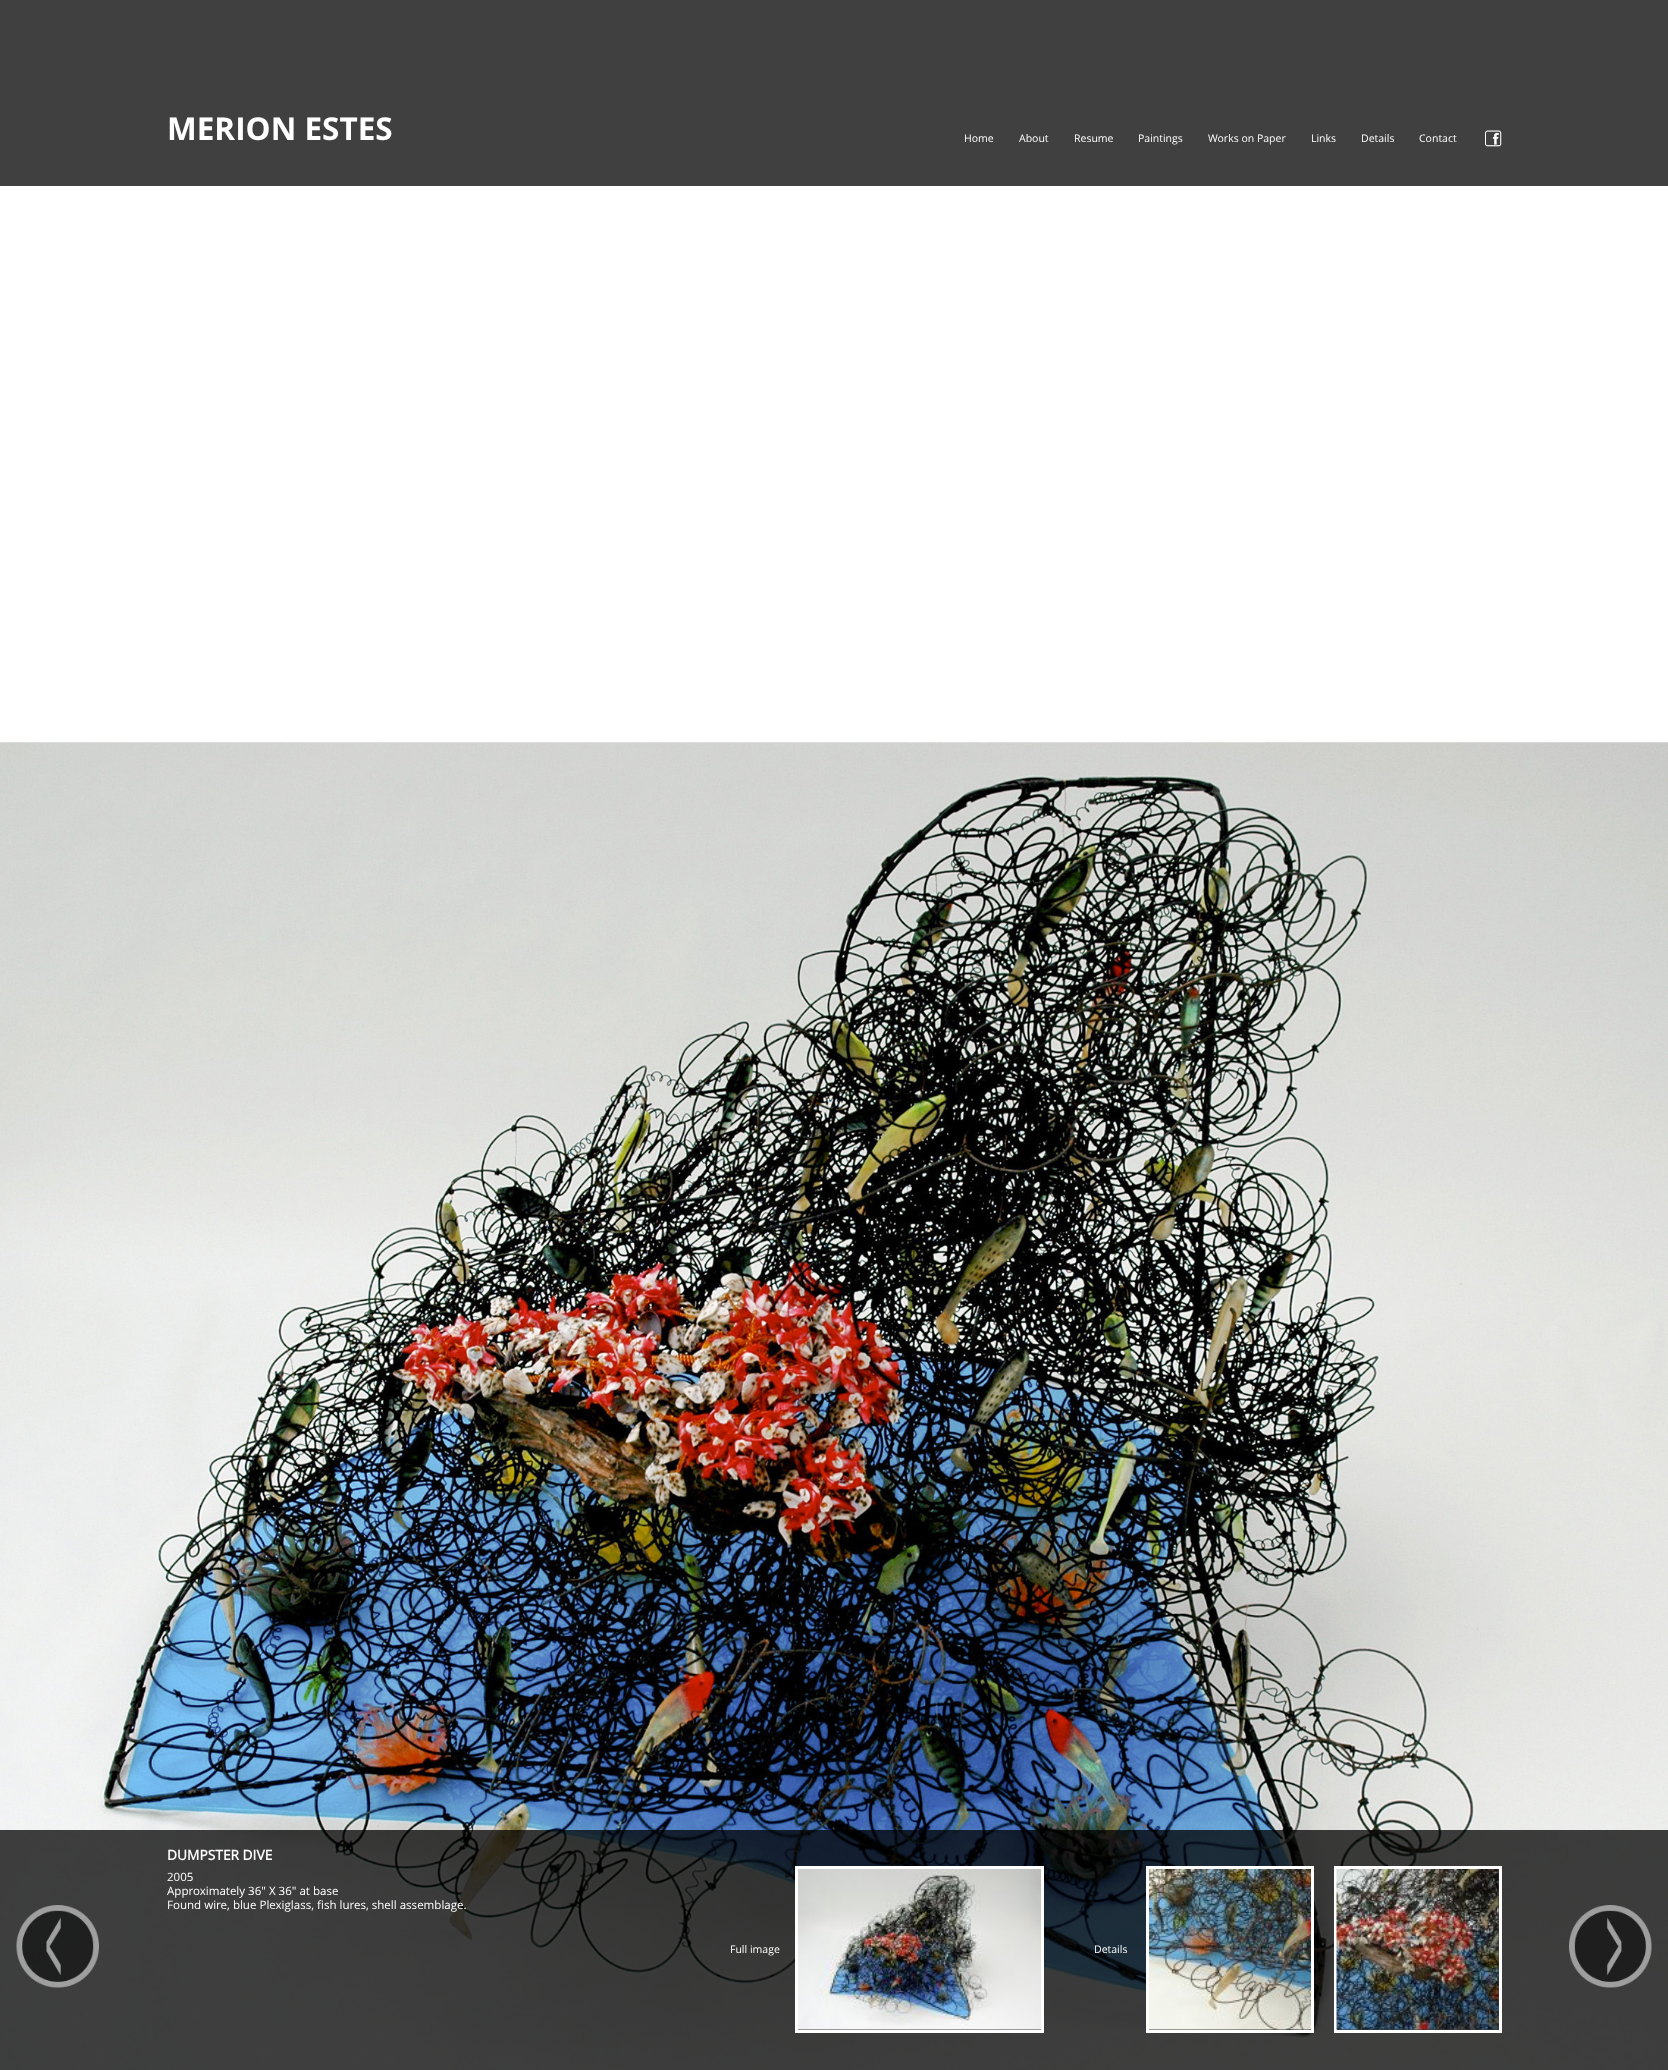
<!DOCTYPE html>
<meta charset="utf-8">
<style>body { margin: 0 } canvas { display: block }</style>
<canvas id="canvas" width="1668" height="2070"></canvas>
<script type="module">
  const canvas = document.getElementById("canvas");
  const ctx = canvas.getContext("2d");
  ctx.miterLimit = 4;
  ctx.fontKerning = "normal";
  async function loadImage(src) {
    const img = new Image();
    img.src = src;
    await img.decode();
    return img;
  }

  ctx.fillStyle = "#ffffff";
  ctx.fillRect(0, 0, 1668, 2070);
  ctx.fillStyle = "#404040";
  ctx.fillRect(0, 0, 1668, 186);
  ctx.font = "bold 31.5px 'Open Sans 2'";
  ctx.fillStyle = "#ffffff";
  ctx.fillText("MERION ESTES", 167, 140);
  ctx.font = "10.5px Open Sans";
  ctx.fillText("Home", 964, 142);
  ctx.fillText("About", 1019, 142);
  ctx.fillText("Resume", 1074, 142);
  ctx.fillText("Paintings", 1138, 142);
  ctx.fillText("Works on Paper", 1208, 142);
  ctx.fillText("Links", 1311, 142);
  ctx.fillText("Details", 1361, 142);
  ctx.fillText("Contact", 1419, 142);
  ctx.drawImage(await loadImage("img1.png"), 1485, 130, 17, 17);
  ctx.drawImage(await loadImage("img2.png"), 0, 742, 1668, 1);
  ctx.drawImage(await loadImage("img3.png"), 0, 742, 1668, 1328);
  ctx.fillStyle = "rgba(0, 0, 0, 0.75)";
  ctx.fillRect(0, 1830, 1668, 240);
  ctx.drawImage(await loadImage("img4.png"), 16, 1905, 83, 83);
  ctx.font = "bold 13.75px Open Sans";
  ctx.fillStyle = "#ffffff";
  ctx.fillText("DUMPSTER DIVE", 167, 1860);
  ctx.font = "11.55px Open Sans";
  ctx.fillText("2005", 167, 1881);
  ctx.fillText("Approximately 36\" X 36\" at base", 167, 1895);
  ctx.fillText("Found wire, blue Plexiglass, fish lures, shell assemblage.", 167, 1909);
  ctx.strokeStyle = "#ffffff";
  ctx.lineWidth = 3;
  ctx.strokeRect(796.5, 1867.5, 246, 164);
  ctx.drawImage(await loadImage("img5.png"), 798, 1869, 243, 161);
  ctx.strokeRect(1147.5, 1867.5, 165, 164);
  ctx.strokeRect(1335.5, 1867.5, 165, 164);
  ctx.font = "10.5px Open Sans";
  ctx.fillText("Full image", 730, 1953);
  ctx.fillText("Details", 1094, 1953);
  ctx.drawImage(await loadImage("img6.png"), 1149, 1869, 162, 161);
  ctx.drawImage(await loadImage("img7.png"), 1336, 1869, 163, 161);
  ctx.drawImage(await loadImage("img8.png"), 1569, 1905, 83, 83);
</script>
